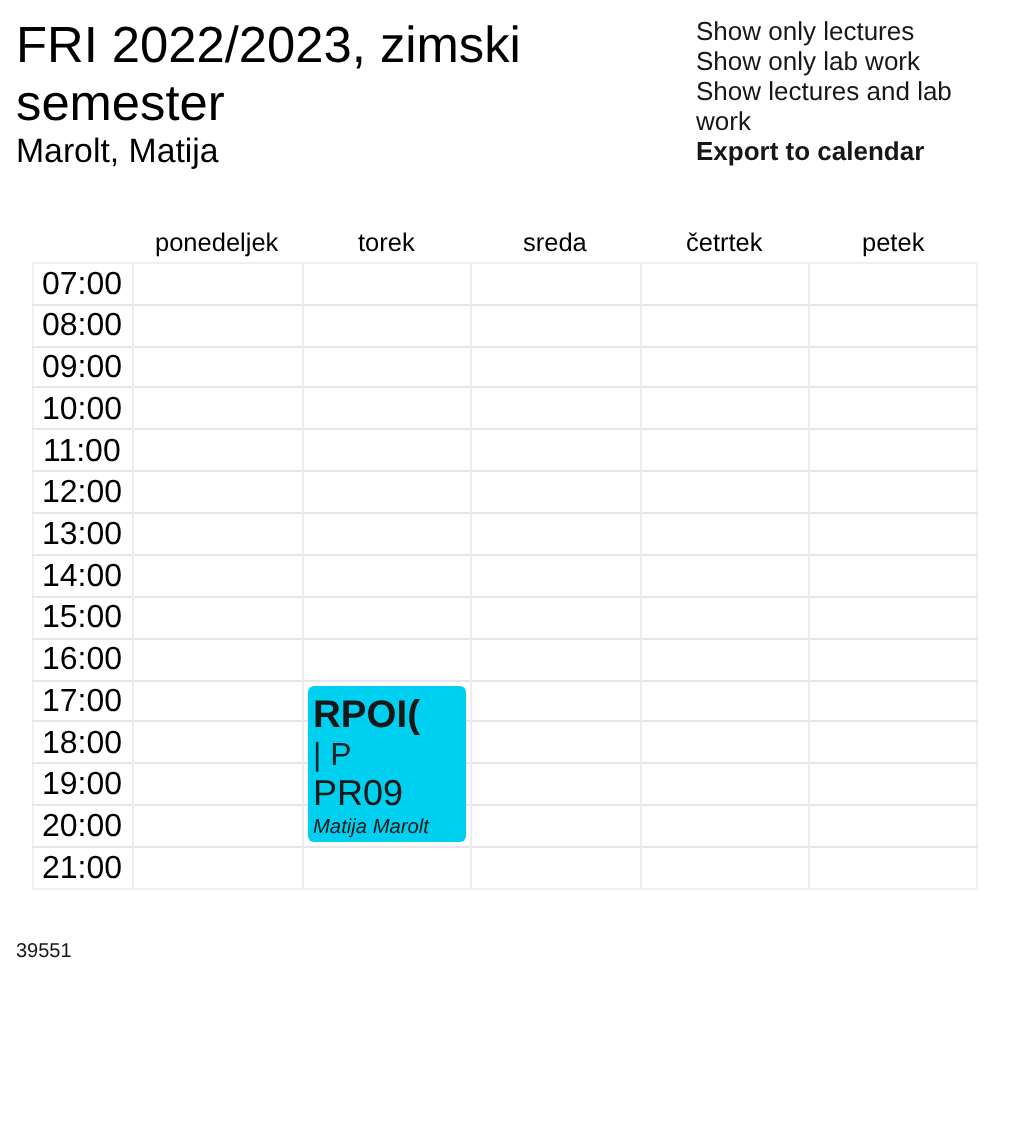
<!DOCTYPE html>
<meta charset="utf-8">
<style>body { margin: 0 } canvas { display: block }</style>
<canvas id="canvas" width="1009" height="1147"></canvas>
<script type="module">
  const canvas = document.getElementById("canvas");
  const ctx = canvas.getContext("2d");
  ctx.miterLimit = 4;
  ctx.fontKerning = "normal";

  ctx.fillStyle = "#ffffff";
  ctx.fillRect(0, 0, 1009, 1147);
  ctx.font = "50.75px Liberation Sans";
  ctx.fillStyle = "#000000";
  ctx.fillText("FRI 2022/2023, zimski", 16, 62);
  ctx.fillText("semester", 16, 120);
  ctx.font = "33.75px Liberation Sans";
  ctx.fillText("Marolt, Matija", 16, 162);
  ctx.font = "26px Liberation Sans";
  ctx.fillStyle = "#171717";
  ctx.fillText("Show only lectures", 696, 40);
  ctx.fillText("Show only lab work", 696, 70);
  ctx.fillText("Show lectures and lab", 696, 100);
  ctx.fillText("work", 696, 130);
  ctx.font = "bold 26px Liberation Sans";
  ctx.fillText("Export to calendar", 696, 160);
  ctx.font = "25.5px Liberation Sans";
  ctx.fillStyle = "#000000";
  ctx.fillText("ponedeljek", 155, 251);
  ctx.fillText("torek", 358, 251);
  ctx.fillText("sreda", 523, 251);
  ctx.fillText("četrtek", 686, 251);
  ctx.fillText("petek", 862, 251);
  ctx.strokeStyle = "#f0f0f0";
  ctx.lineWidth = 2;
  ctx.strokeRect(33, 263, 944, 42);
  ctx.font = "32px Liberation Sans";
  ctx.fillText("07:00", 42, 294);
  ctx.strokeStyle = "rgba(214, 214, 214, 0.36)";
  ctx.strokeRect(33, 305, 944, 42);
  ctx.strokeRect(33, 347, 944, 40);
  ctx.strokeRect(33, 387, 944, 42);
  ctx.strokeRect(33, 429, 944, 42);
  ctx.strokeRect(33, 471, 944, 42);
  ctx.strokeRect(33, 513, 944, 42);
  ctx.strokeRect(33, 555, 944, 42);
  ctx.strokeRect(33, 597, 944, 42);
  ctx.strokeRect(33, 639, 944, 42);
  ctx.strokeRect(33, 681, 944, 40);
  ctx.strokeRect(33, 721, 944, 42);
  ctx.strokeRect(33, 763, 944, 42);
  ctx.strokeRect(33, 805, 944, 42);
  ctx.strokeRect(33, 847, 944, 42);
  ctx.fillStyle = "#ededed";
  ctx.fillRect(132, 262, 2, 626);
  ctx.fillRect(470, 262, 2, 626);
  ctx.fillRect(640, 262, 2, 626);
  ctx.fillRect(808, 262, 2, 626);
  ctx.fillStyle = "#000000";
  ctx.fillText("08:00", 42, 335);
  ctx.fillText("09:00", 42, 377);
  ctx.fillText("10:00", 42, 419);
  ctx.fillText("11:00", 43, 461);
  ctx.fillText("12:00", 42, 502);
  ctx.fillText("13:00", 42, 544);
  ctx.fillText("14:00", 42, 586);
  ctx.fillText("15:00", 42, 627);
  ctx.fillText("16:00", 42, 669);
  ctx.fillText("17:00", 42, 711);
  ctx.fillStyle = "#ededed";
  ctx.fillRect(302, 262, 2, 626);
  ctx.fillStyle = "#00d0ef";
  ctx.beginPath();
  ctx.roundRect(308, 686, 158, 156, 6);
  ctx.fill();
  ctx.font = "bold 38.5px Liberation Sans";
  ctx.fillStyle = "#171717";
  ctx.fillText("RPOI(", 313, 727);
  ctx.font = "32px Liberation Sans";
  ctx.fillStyle = "#222222";
  ctx.fillText("| P", 313, 765);
  ctx.font = "36px Liberation Sans";
  ctx.fillStyle = "#171717";
  ctx.fillText("PR09", 313, 805);
  ctx.font = "italic 20.25px Liberation Sans";
  ctx.fillText("Matija Marolt", 313, 833);
  ctx.font = "32px Liberation Sans";
  ctx.fillStyle = "#000000";
  ctx.fillText("18:00", 42, 753);
  ctx.fillText("19:00", 42, 794);
  ctx.fillText("20:00", 42, 836);
  ctx.fillText("21:00", 42, 878);
  ctx.font = "20px Liberation Sans";
  ctx.fillStyle = "#171717";
  ctx.fillText("39551", 16, 957);
</script>
